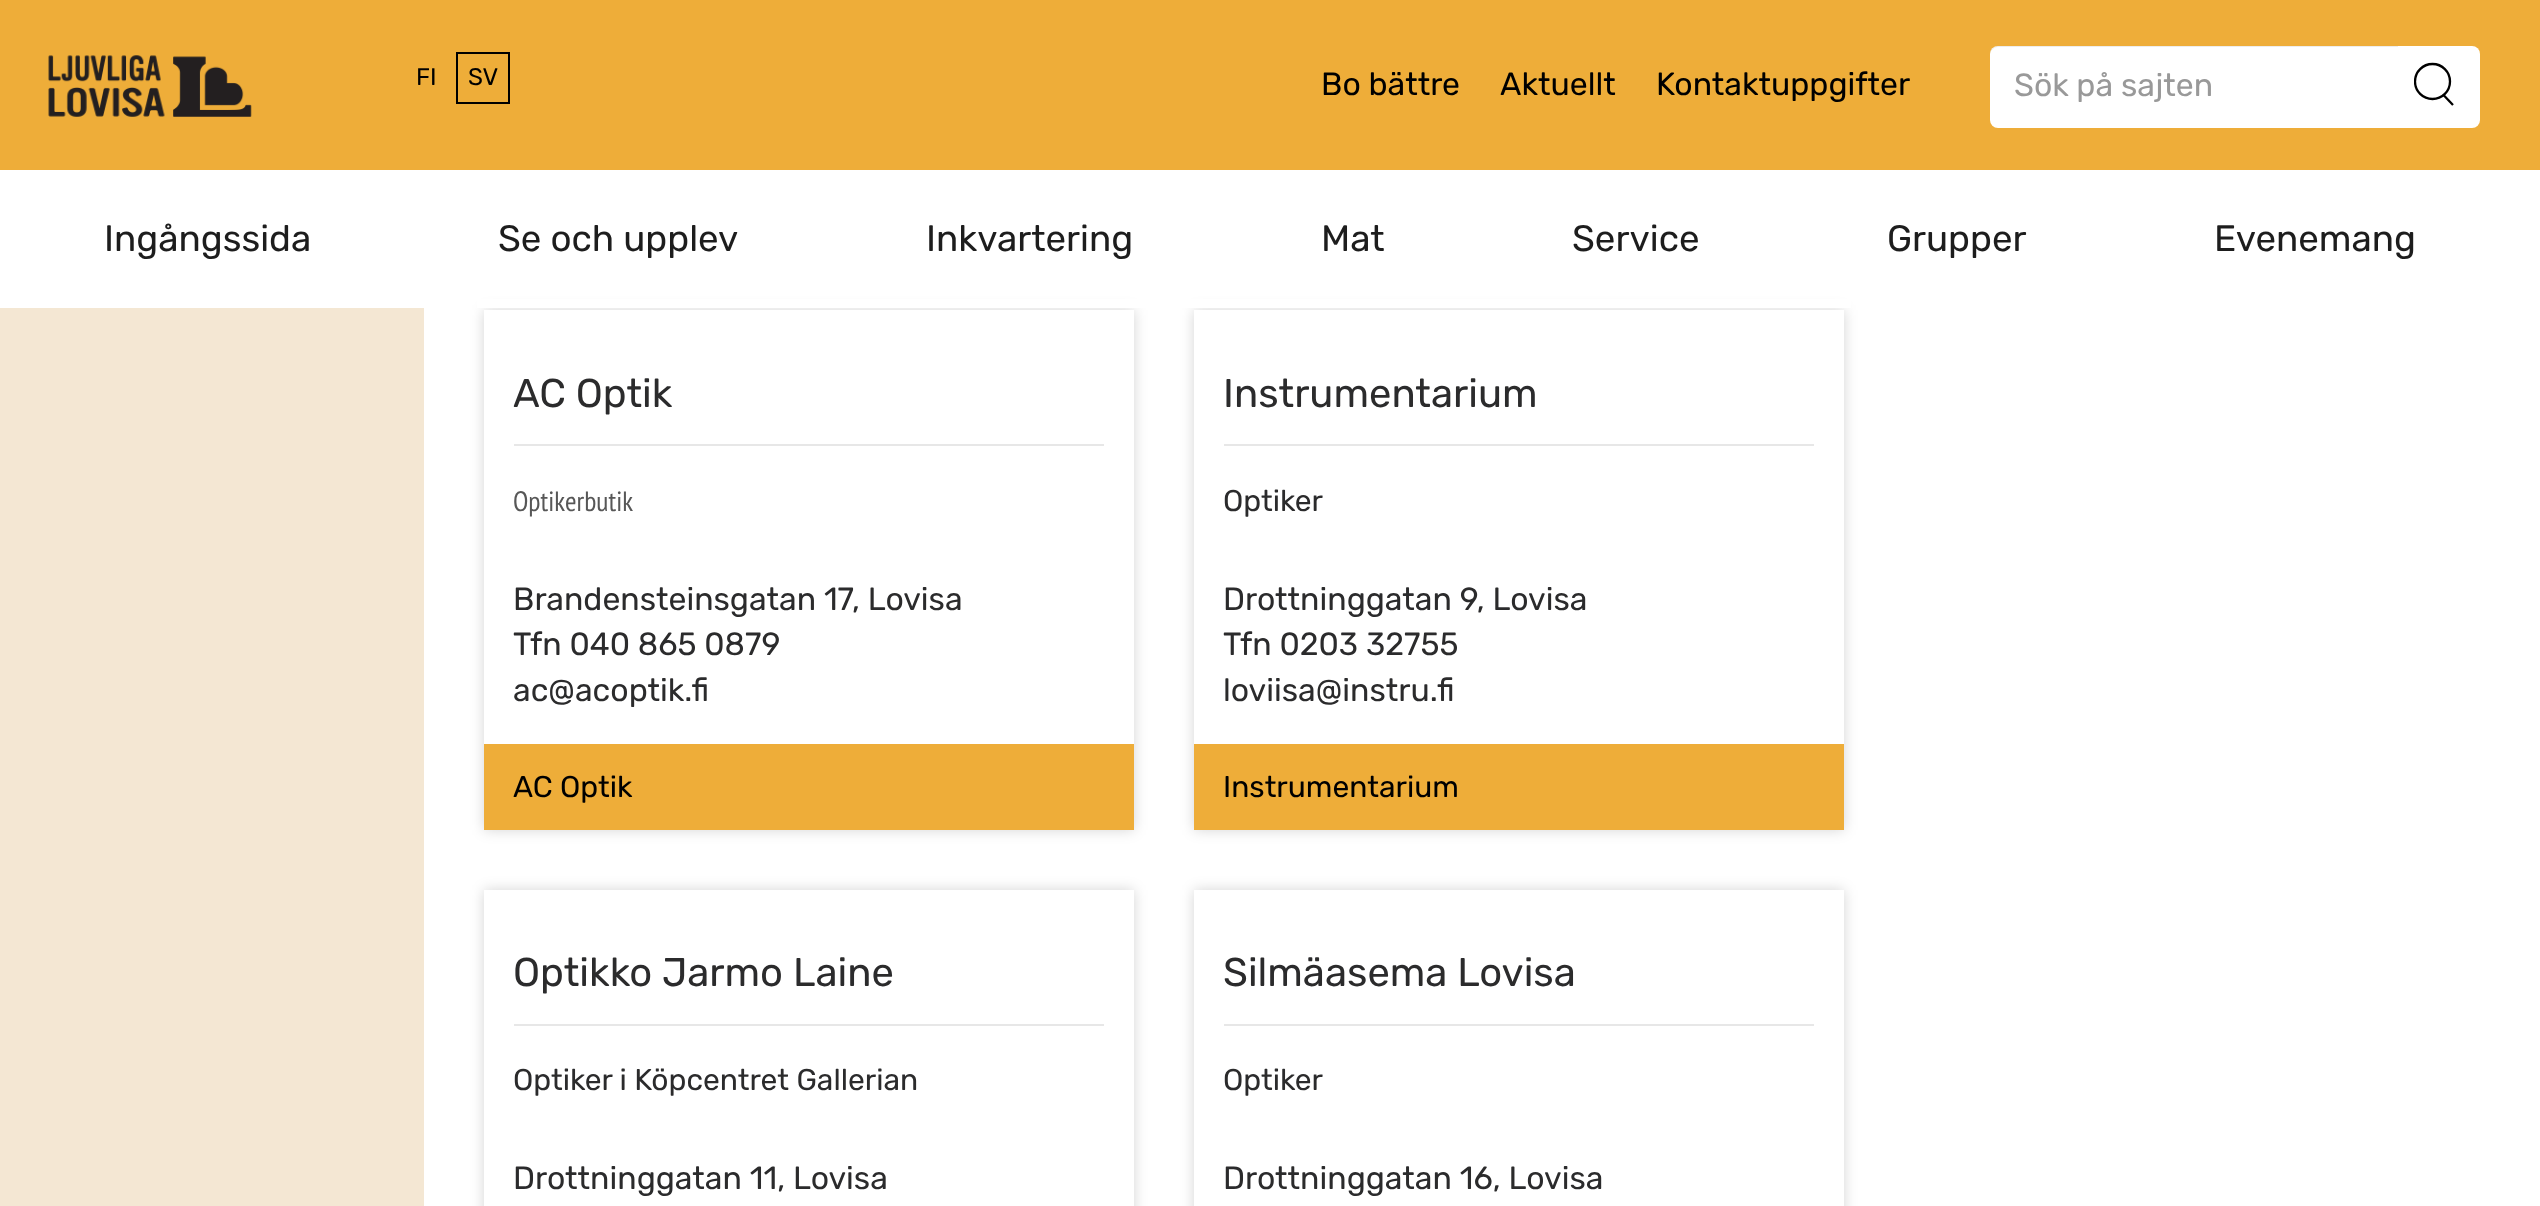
<!DOCTYPE html>
<meta charset="utf-8">
<style>body { margin: 0 } canvas { display: block }</style>
<canvas id="canvas" width="2540" height="1206"></canvas>
<script type="module">
  const canvas = document.getElementById("canvas");
  const ctx = canvas.getContext("2d");
  ctx.miterLimit = 4;
  ctx.fontKerning = "normal";
  async function loadImage(src) {
    const img = new Image();
    img.src = src;
    await img.decode();
    return img;
  }

  ctx.fillStyle = "#ffffff";
  ctx.fillRect(0, 0, 2540, 1206);
  ctx.fillStyle = "#eead39";
  ctx.fillRect(0, 0, 2540, 170);
  ctx.drawImage(await loadImage("img1.png"), 48, 55, 204, 62);
  ctx.font = "24px Rubik";
  ctx.fillStyle = "#000000";
  ctx.fillText("FI", 416, 85);
  ctx.strokeStyle = "#000000";
  ctx.lineWidth = 2;
  ctx.strokeRect(457, 53, 52, 50);
  ctx.fillText("SV", 468, 85);
  ctx.font = "32px Rubik";
  ctx.fillText("Bo bättre", 1321, 95);
  ctx.fillText("Aktuellt", 1500, 95);
  ctx.fillText("Kontaktuppgifter", 1656, 95);
  ctx.fillStyle = "#ffffff";
  ctx.beginPath();
  ctx.roundRect(1990, 46, 408, 82, [8, 0, 0, 8]);
  ctx.fill();
  ctx.fillStyle = "rgba(0, 0, 0, 0.07)";
  ctx.beginPath();
  ctx.moveTo(1998, 47);
  ctx.lineTo(2398, 47);
  ctx.lineTo(2398, 46);
  ctx.lineTo(1998, 46);
  ctx.bezierCurveTo(1994, 46, 1990, 50, 1990, 54);
  ctx.lineTo(1990, 55);
  ctx.bezierCurveTo(1990, 51, 1994, 47, 1998, 47);
  ctx.closePath();
  ctx.fill();
  ctx.fillStyle = "#999999";
  ctx.fillText("Sök på sajten", 2014, 96);
  ctx.fillStyle = "#ffffff";
  ctx.beginPath();
  ctx.roundRect(2398, 46, 82, 82, [0, 8, 8, 0]);
  ctx.fill();
  ctx.save();
  ctx.beginPath();
  ctx.rect(2414, 52, 40, 54);
  ctx.clip();
  ctx.beginPath();
  ctx.arc(2432.5, 81.5, 17.5, 0, Math.PI * 2);
  ctx.lineWidth = 2.3;
  ctx.stroke();
  ctx.restore();
  ctx.beginPath();
  ctx.moveTo(2443, 94.5);
  ctx.lineTo(2453, 105);
  ctx.lineWidth = 2.3;
  ctx.stroke();
  ctx.save();
  ctx.beginPath();
  ctx.moveTo(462, 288);
  ctx.lineTo(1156, 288);
  ctx.lineTo(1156, 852);
  ctx.lineTo(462, 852);
  ctx.closePath();
  ctx.moveTo(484, 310);
  ctx.lineTo(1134, 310);
  ctx.lineTo(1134, 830);
  ctx.lineTo(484, 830);
  ctx.closePath();
  ctx.clip("evenodd");
  ctx.fillStyle = "rgba(0, 0, 0, 0.17)";
  ctx.filter = "blur(7px)";
  ctx.beginPath();
  ctx.rect(484, 310, 650, 520);
  ctx.fill();
  ctx.filter = "none";
  ctx.restore();
  ctx.save();
  ctx.beginPath();
  ctx.moveTo(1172, 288);
  ctx.lineTo(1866, 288);
  ctx.lineTo(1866, 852);
  ctx.lineTo(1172, 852);
  ctx.closePath();
  ctx.moveTo(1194, 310);
  ctx.lineTo(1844, 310);
  ctx.lineTo(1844, 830);
  ctx.lineTo(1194, 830);
  ctx.closePath();
  ctx.clip("evenodd");
  ctx.fillStyle = "rgba(0, 0, 0, 0.17)";
  ctx.filter = "blur(7px)";
  ctx.beginPath();
  ctx.rect(1194, 310, 650, 520);
  ctx.fill();
  ctx.filter = "none";
  ctx.restore();
  ctx.fillRect(477, 299, 1374, 9);
  ctx.font = "36.75px Rubik";
  ctx.fillStyle = "#1d1d1d";
  ctx.fillText("Ingångssida", 104, 251);
  ctx.fillText("Se och upplev", 498, 251);
  ctx.fillText("Inkvartering", 926, 251);
  ctx.fillText("Mat", 1321, 251);
  ctx.fillText("Service", 1572, 251);
  ctx.fillText("Grupper", 1887, 251);
  ctx.fillText("Evenemang", 2214, 251);
  ctx.fillStyle = "#f4e7d3";
  ctx.fillRect(0, 308, 424, 898);
  ctx.fillStyle = "#e7e7e7";
  ctx.fillRect(514, 444, 590, 2);
  ctx.font = "40px Rubik";
  ctx.fillStyle = "#2b2b2c";
  ctx.fillText("AC Optik", 513, 407);
  ctx.font = "28px PT Sans Narrow";
  ctx.fillStyle = "#575757";
  ctx.fillText("Optikerbutik", 513, 511);
  ctx.font = "32px Rubik";
  ctx.fillStyle = "#2b2b2c";
  ctx.fillText("Brandensteinsgatan 17, Lovisa", 513, 610);
  ctx.fillText("Tfn 040 865 0879", 513, 655);
  ctx.fillText("ac@acoptik.fi", 513, 701);
  ctx.fillStyle = "#eead39";
  ctx.fillRect(484, 744, 650, 86);
  ctx.font = "30px Rubik";
  ctx.fillStyle = "#000000";
  ctx.fillText("AC Optik", 513, 797);
  ctx.fillStyle = "#e7e7e7";
  ctx.fillRect(1224, 444, 590, 2);
  ctx.font = "40px Rubik";
  ctx.fillStyle = "#2b2b2c";
  ctx.fillText("Instrumentarium", 1223, 407);
  ctx.font = "30px Rubik";
  ctx.fillText("Optiker", 1223, 511);
  ctx.font = "32px Rubik";
  ctx.fillText("Drottninggatan 9, Lovisa", 1223, 610);
  ctx.fillText("Tfn 0203 32755", 1223, 655);
  ctx.fillText("loviisa@instru.fi", 1223, 701);
  ctx.fillStyle = "#eead39";
  ctx.fillRect(1194, 744, 650, 86);
  ctx.font = "30px Rubik";
  ctx.fillStyle = "#000000";
  ctx.fillText("Instrumentarium", 1223, 797);
  ctx.save();
  ctx.beginPath();
  ctx.moveTo(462, 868);
  ctx.lineTo(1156, 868);
  ctx.lineTo(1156, 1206);
  ctx.lineTo(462, 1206);
  ctx.closePath();
  ctx.moveTo(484, 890);
  ctx.lineTo(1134, 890);
  ctx.lineTo(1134, 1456);
  ctx.lineTo(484, 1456);
  ctx.closePath();
  ctx.clip("evenodd");
  ctx.fillStyle = "rgba(0, 0, 0, 0.17)";
  ctx.filter = "blur(7px)";
  ctx.beginPath();
  ctx.rect(484, 890, 650, 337);
  ctx.fill();
  ctx.filter = "none";
  ctx.restore();
  ctx.fillStyle = "#e7e7e7";
  ctx.fillRect(514, 1024, 590, 2);
  ctx.font = "40px Rubik";
  ctx.fillStyle = "#2b2b2c";
  ctx.fillText("Optikko Jarmo Laine", 513, 986);
  ctx.font = "30px Rubik";
  ctx.fillText("Optiker i Köpcentret Gallerian", 513, 1090);
  ctx.font = "32px Rubik";
  ctx.fillText("Drottninggatan 11, Lovisa", 513, 1189);
  ctx.save();
  ctx.beginPath();
  ctx.moveTo(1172, 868);
  ctx.lineTo(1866, 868);
  ctx.lineTo(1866, 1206);
  ctx.lineTo(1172, 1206);
  ctx.closePath();
  ctx.moveTo(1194, 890);
  ctx.lineTo(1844, 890);
  ctx.lineTo(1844, 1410);
  ctx.lineTo(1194, 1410);
  ctx.closePath();
  ctx.clip("evenodd");
  ctx.fillStyle = "rgba(0, 0, 0, 0.17)";
  ctx.filter = "blur(7px)";
  ctx.beginPath();
  ctx.rect(1194, 890, 650, 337);
  ctx.fill();
  ctx.filter = "none";
  ctx.restore();
  ctx.fillStyle = "#e7e7e7";
  ctx.fillRect(1224, 1024, 590, 2);
  ctx.font = "40px Rubik";
  ctx.fillStyle = "#2b2b2c";
  ctx.fillText("Silmäasema Lovisa", 1223, 986);
  ctx.font = "30px Rubik";
  ctx.fillText("Optiker", 1223, 1090);
  ctx.font = "32px Rubik";
  ctx.fillText("Drottninggatan 16, Lovisa", 1223, 1189);
</script>
